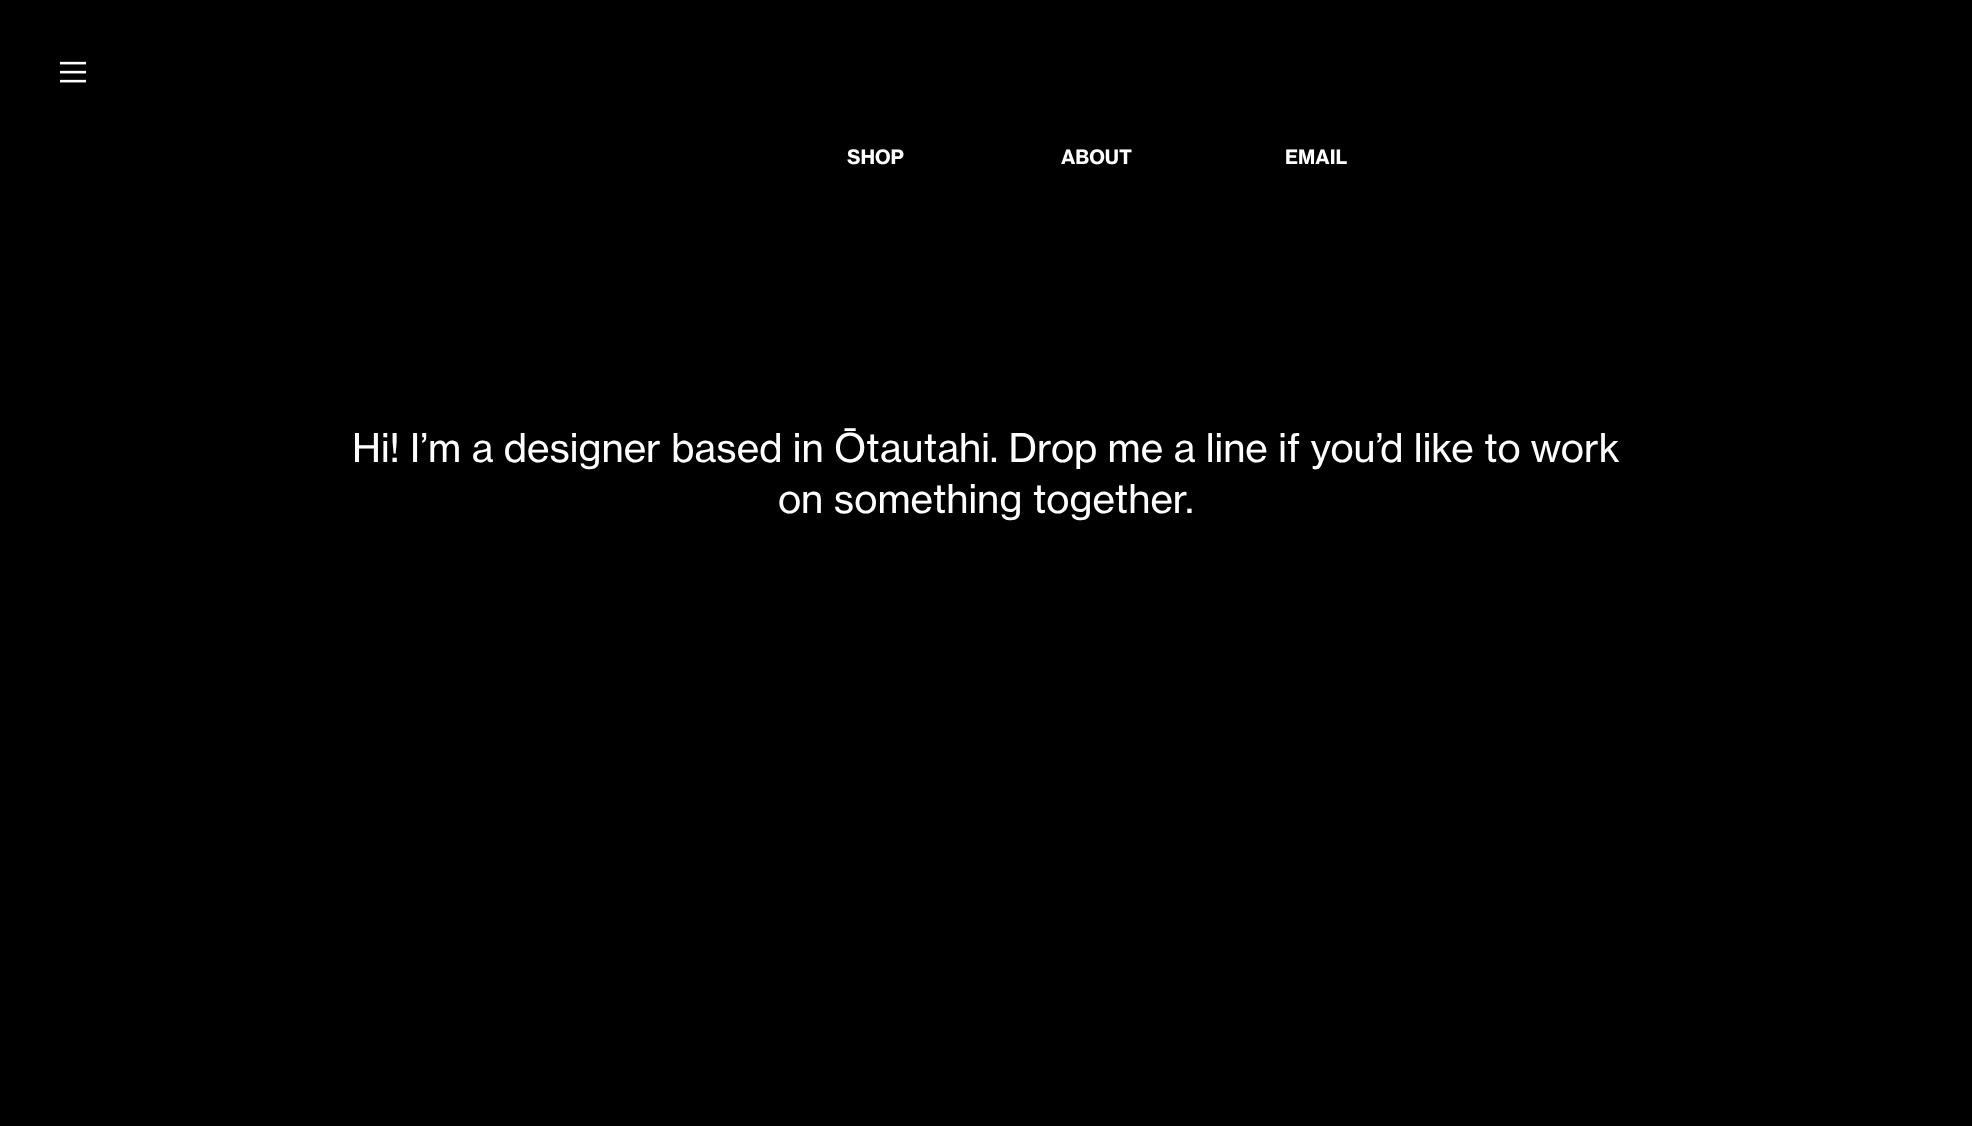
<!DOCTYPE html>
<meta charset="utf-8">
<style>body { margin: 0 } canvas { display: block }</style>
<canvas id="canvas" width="1972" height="1126"></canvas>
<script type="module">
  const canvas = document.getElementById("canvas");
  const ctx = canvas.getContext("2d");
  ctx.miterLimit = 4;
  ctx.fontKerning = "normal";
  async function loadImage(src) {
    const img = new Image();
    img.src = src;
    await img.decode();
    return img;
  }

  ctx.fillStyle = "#000000";
  ctx.fillRect(0, 0, 1972, 1126);
  ctx.drawImage(await loadImage("img1.png"), 59, 61, 28, 22);
  ctx.font = "bold 19.5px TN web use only";
  ctx.fillStyle = "#ffffff";
  ctx.fillText("SHOP", 847, 164);
  ctx.fillText("ABOUT", 1061, 164);
  ctx.fillText("EMAIL", 1285, 164);
  ctx.font = "38.9px TN web use only";
  ctx.fillText("Hi! I’m a designer based in Ōtautahi. Drop me a line if you’d like to work", 352, 462);
  ctx.fillText("on something together.", 778, 513);
</script>
